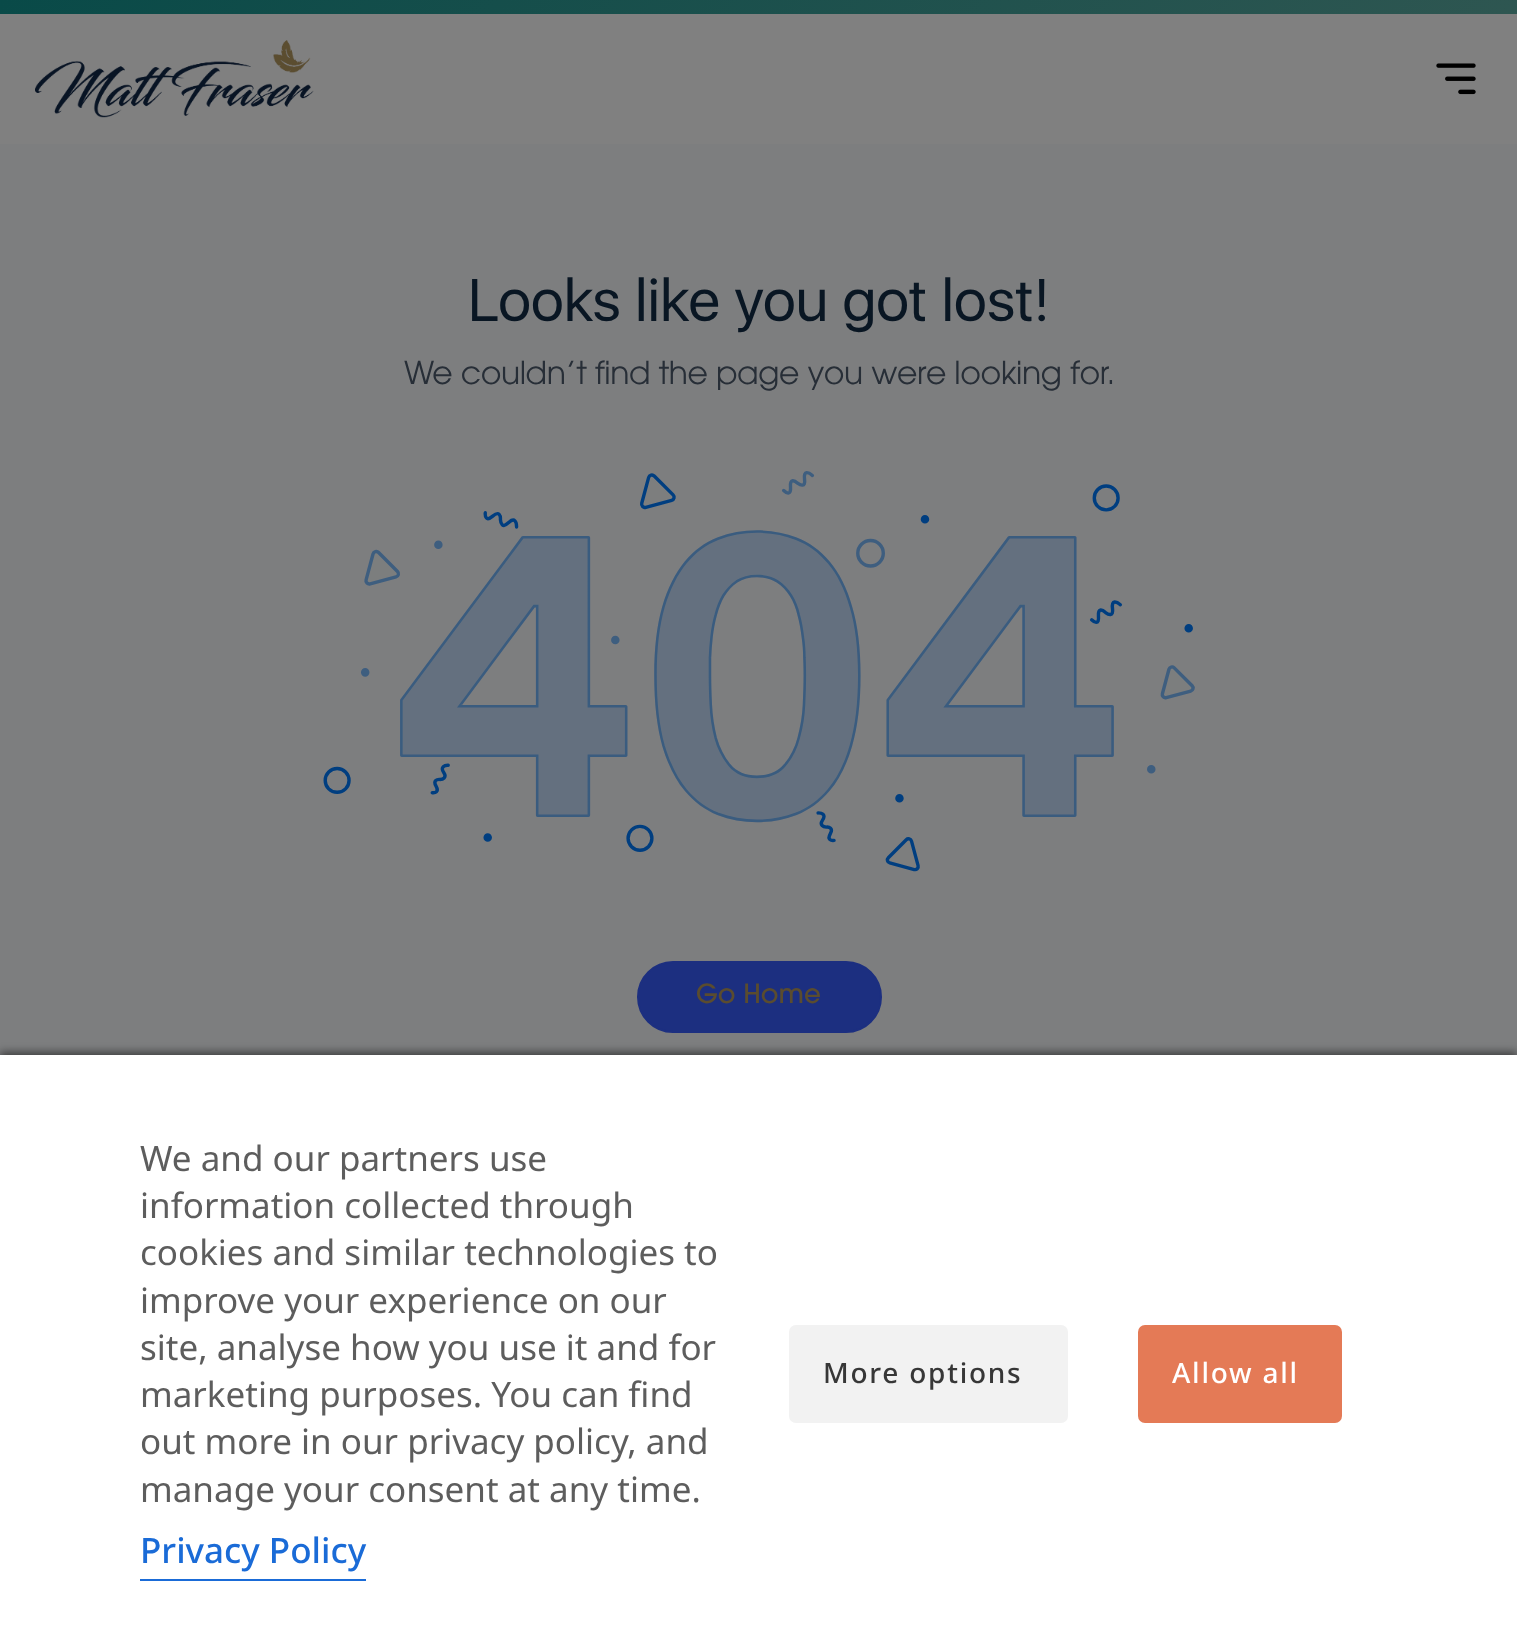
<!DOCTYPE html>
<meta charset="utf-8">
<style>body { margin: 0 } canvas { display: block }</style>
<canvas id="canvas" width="1517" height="1637"></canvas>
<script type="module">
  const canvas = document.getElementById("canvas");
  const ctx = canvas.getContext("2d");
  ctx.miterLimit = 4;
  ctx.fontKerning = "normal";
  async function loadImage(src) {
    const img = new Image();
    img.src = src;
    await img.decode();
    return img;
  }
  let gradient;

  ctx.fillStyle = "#7d7e7f";
  ctx.fillRect(0, 0, 1517, 1637);
  ctx.fillStyle = "#808080";
  ctx.fillRect(0, 14, 1517, 130);
  gradient = ctx.createLinearGradient(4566, 1559, 1503, -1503);
  gradient.addColorStop(0, "#56414a");
  gradient.addColorStop(0.33, "#665624");
  gradient.addColorStop(0.67, "#3a5a54");
  gradient.addColorStop(1, "#094a48");
  ctx.fillStyle = gradient;
  ctx.fillRect(0, 0, 1517, 14);
  ctx.drawImage(await loadImage("img1.png"), 35, 40, 279, 78);
  ctx.drawImage(await loadImage("img2.png"), 1436, 63, 40, 32);
  ctx.font = "59.5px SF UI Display";
  ctx.fillStyle = "#091623";
  ctx.fillText("Looks like you got lost!", 468, 321);
  ctx.letterSpacing = "-0.4px";
  ctx.font = "300 31.5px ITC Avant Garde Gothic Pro";
  ctx.fillStyle = "#272e37";
  ctx.fillText("We couldn’t find the page you were looking for.", 404, 384);
  ctx.drawImage(await loadImage("img3.png"), 323, 471, 872, 401);
  ctx.fillStyle = "#1c2f80";
  ctx.beginPath();
  ctx.roundRect(638, 962, 243, 70, 35);
  ctx.fill();
  ctx.strokeStyle = "#1c2f80";
  ctx.lineWidth = 2;
  ctx.stroke();
  ctx.letterSpacing = "0px";
  ctx.font = "500 26.25px ITC Avant Garde Gothic Pro";
  ctx.fillStyle = "#5a4c2f";
  ctx.fillText("Go Home", 696, 1003);
  ctx.fillStyle = "rgba(0, 0, 0, 0.5)";
  ctx.filter = "blur(4.5px)";
  ctx.beginPath();
  ctx.rect(0, 1052, 1517, 583);
  ctx.fill();
  ctx.filter = "none";
  ctx.fillStyle = "#ffffff";
  ctx.fillRect(0, 1055, 1517, 582);
  ctx.font = "35px Noto Sans";
  ctx.fillStyle = "#5d5d5d";
  ctx.fillText("We and our partners use", 140, 1171);
  ctx.fillText("information collected through", 140, 1218);
  ctx.fillText("cookies and similar technologies to", 140, 1265);
  ctx.fillText("improve your experience on our", 140, 1313);
  ctx.fillText("site, analyse how you use it and for", 140, 1360);
  ctx.fillText("marketing purposes. You can find", 140, 1407);
  ctx.fillText("out more in our privacy policy, and", 140, 1454);
  ctx.fillText("manage your consent at any time.", 140, 1502);
  ctx.font = "500 35px Noto Sans";
  ctx.fillStyle = "#1a6bd7";
  ctx.fillText("Privacy Policy", 140, 1563);
  ctx.fillRect(140, 1579, 226, 2);
  ctx.fillStyle = "#f2f2f2";
  ctx.beginPath();
  ctx.roundRect(789, 1325, 279, 98, 7);
  ctx.fill();
  ctx.letterSpacing = "1.75px";
  ctx.font = "500 28px Noto Sans";
  ctx.fillStyle = "#373737";
  ctx.fillText("More options", 823, 1383);
  ctx.fillStyle = "#e47a56";
  ctx.beginPath();
  ctx.roundRect(1138, 1325, 204, 98, 7);
  ctx.fill();
  ctx.fillStyle = "#ffffff";
  ctx.fillText("Allow all", 1172, 1383);
</script>
